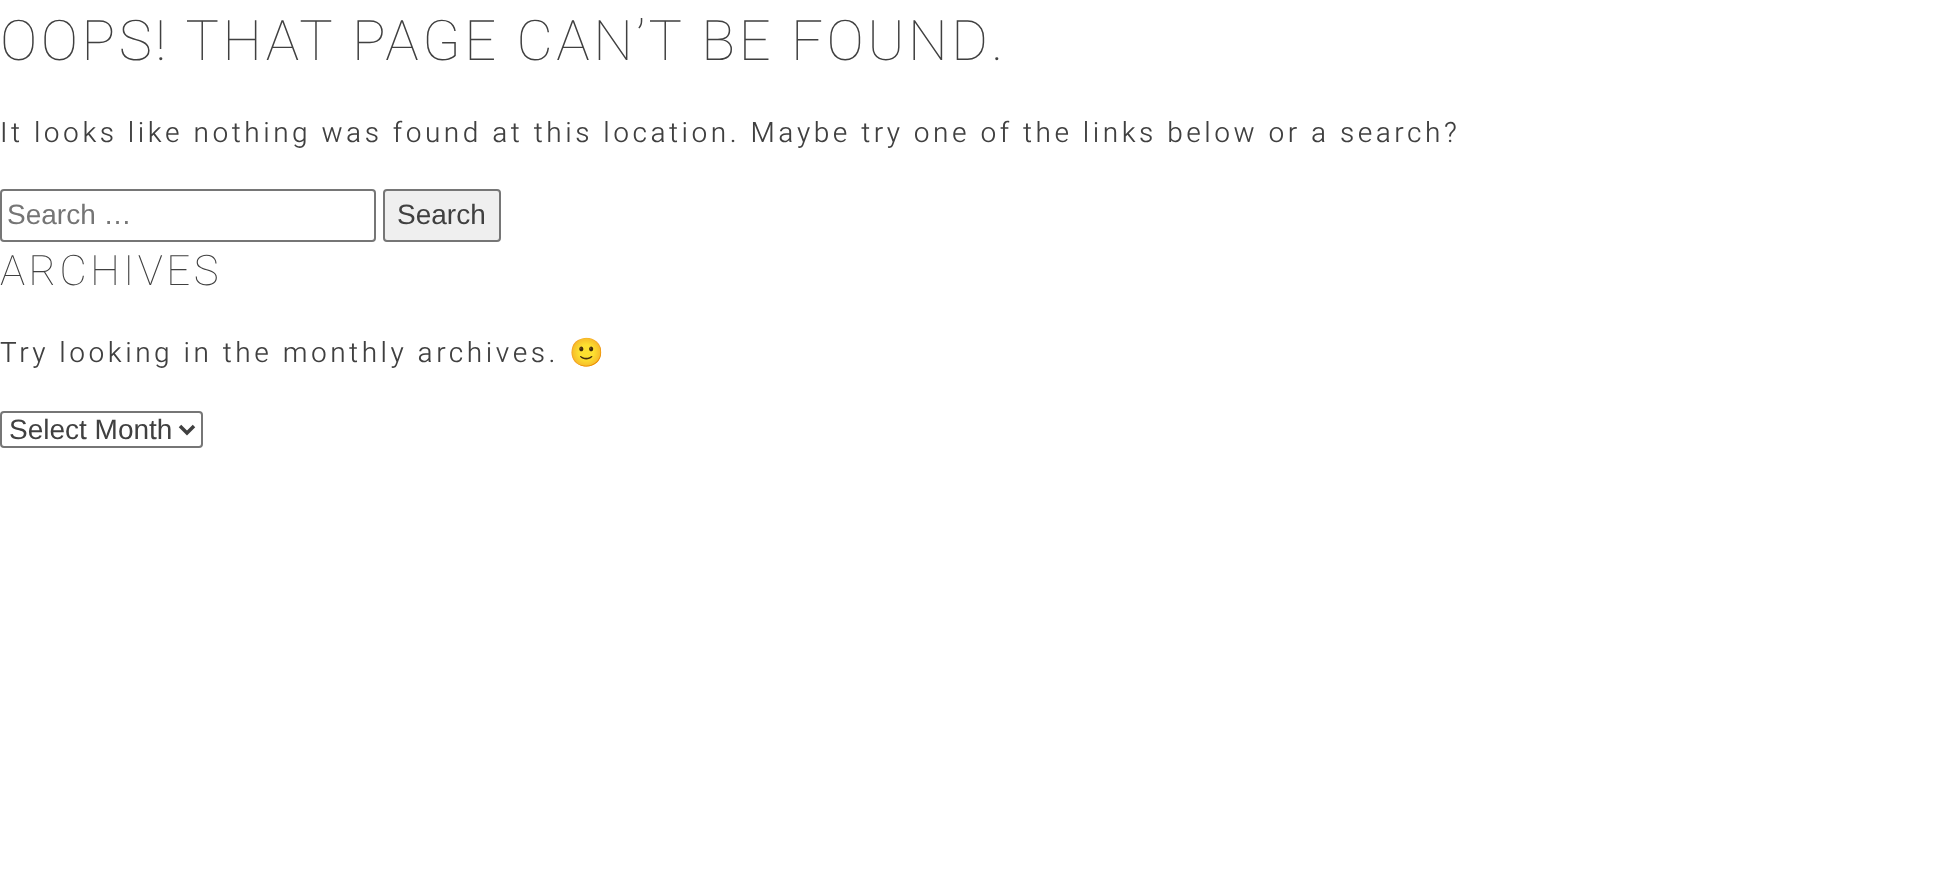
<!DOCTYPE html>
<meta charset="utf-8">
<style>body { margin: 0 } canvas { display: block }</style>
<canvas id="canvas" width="1956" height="886"></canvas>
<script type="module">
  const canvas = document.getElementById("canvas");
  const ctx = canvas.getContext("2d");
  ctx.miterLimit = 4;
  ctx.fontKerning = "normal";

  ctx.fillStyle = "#ffffff";
  ctx.fillRect(0, 0, 1956, 886);
  ctx.letterSpacing = "3.5px";
  ctx.font = "100 56px Heebo";
  ctx.fillStyle = "#404040";
  ctx.fillText("OOPS! THAT PAGE CAN’T BE FOUND.", 0, 60);
  ctx.font = "300 28px Heebo";
  ctx.fillText("It looks like nothing was found at this location. Maybe try one of the links below or a search?", 0, 142);
  ctx.beginPath();
  ctx.roundRect(1, 190, 374, 51, 3);
  ctx.strokeStyle = "#767676";
  ctx.lineWidth = 2;
  ctx.stroke();
  ctx.letterSpacing = "0px";
  ctx.font = "28px Liberation Sans";
  ctx.fillStyle = "#757575";
  ctx.fillText("Search …", 7, 224);
  ctx.fillStyle = "#efefef";
  ctx.beginPath();
  ctx.roundRect(384, 190, 116, 51, 3);
  ctx.fill();
  ctx.stroke();
  ctx.fillStyle = "#404040";
  ctx.fillText("Search", 397, 224);
  ctx.letterSpacing = "3.5px";
  ctx.font = "100 42px Heebo";
  ctx.fillText("ARCHIVES", 0, 285);
  ctx.font = "300 28px Heebo";
  ctx.fillText("Try looking in the monthly archives.", 0, 362);
  ctx.font = "28px Noto Color Emoji";
  ctx.fillText("🙂", 569, 362);
  ctx.beginPath();
  ctx.roundRect(1, 412, 201, 35, 3);
  ctx.stroke();
  ctx.beginPath();
  ctx.moveTo(180, 426);
  ctx.lineTo(187, 433);
  ctx.lineTo(194, 426);
  ctx.strokeStyle = "#404040";
  ctx.lineWidth = 3.5;
  ctx.stroke();
  ctx.letterSpacing = "0px";
  ctx.font = "28px Liberation Sans";
  ctx.fillText("Select Month", 9, 439);
</script>
